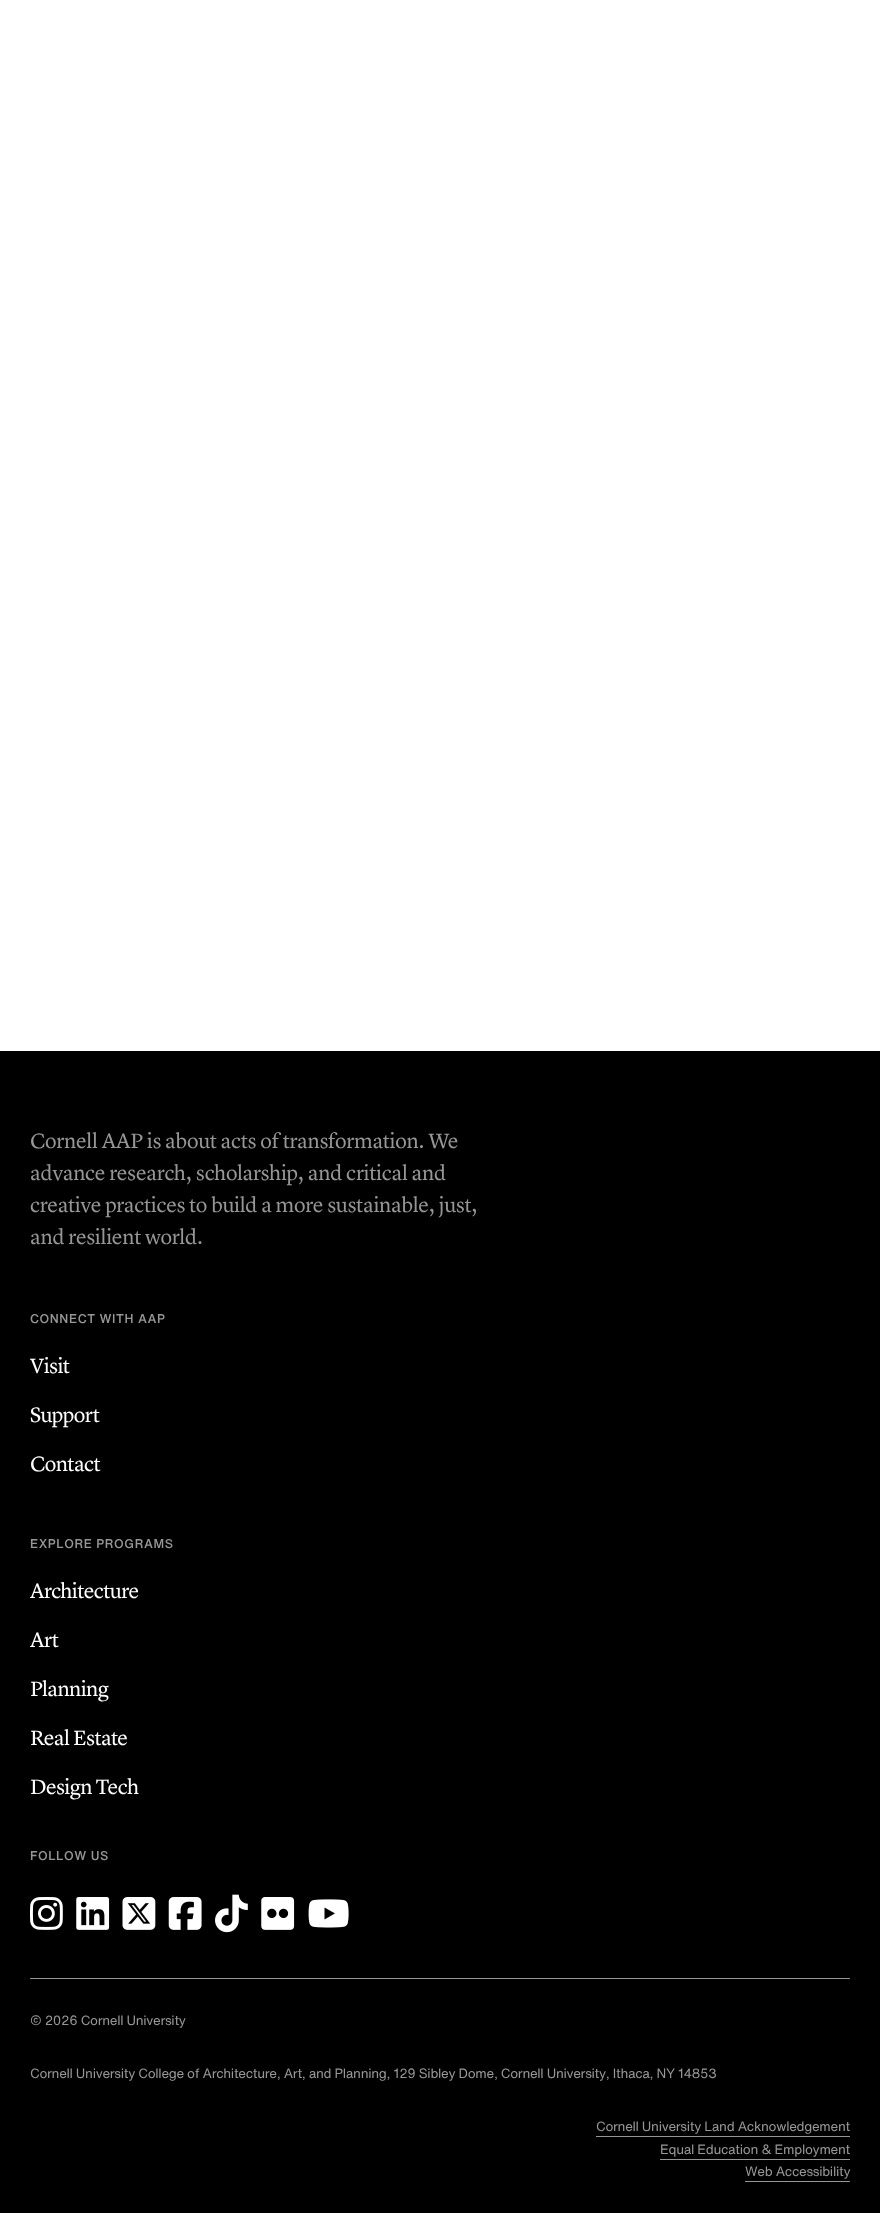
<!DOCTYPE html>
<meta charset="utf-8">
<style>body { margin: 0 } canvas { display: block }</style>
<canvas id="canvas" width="880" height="2213"></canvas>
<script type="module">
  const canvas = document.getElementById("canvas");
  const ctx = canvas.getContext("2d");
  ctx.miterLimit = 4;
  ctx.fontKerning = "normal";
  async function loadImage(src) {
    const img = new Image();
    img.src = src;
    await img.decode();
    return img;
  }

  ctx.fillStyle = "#ffffff";
  ctx.fillRect(0, 0, 880, 2213);
  ctx.fillStyle = "#000000";
  ctx.fillRect(0, 1051, 880, 1162);
  ctx.letterSpacing = "-0.31px";
  ctx.font = "21.5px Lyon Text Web";
  ctx.fillStyle = "#969696";
  ctx.fillText("Cornell AAP is about acts of transformation. We", 30, 1148);
  ctx.fillText("advance research, scholarship, and critical and", 30, 1180);
  ctx.fillText("creative practices to build a more sustainable, just,", 30, 1212);
  ctx.fillText("and resilient world.", 30, 1244);
  ctx.letterSpacing = "0.6px";
  ctx.font = "12.5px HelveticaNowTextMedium";
  ctx.fillText("CONNECT WITH AAP", 30, 1323);
  ctx.letterSpacing = "-0.6px";
  ctx.font = "21.5px Lyon Text Web";
  ctx.fillStyle = "#ffffff";
  ctx.fillText("Visit", 30, 1373);
  ctx.fillText("Support", 30, 1422);
  ctx.fillText("Contact", 30, 1471);
  ctx.letterSpacing = "0.6px";
  ctx.font = "12.5px HelveticaNowTextMedium";
  ctx.fillStyle = "#969696";
  ctx.fillText("EXPLORE PROGRAMS", 30, 1548);
  ctx.letterSpacing = "-0.6px";
  ctx.font = "21.5px Lyon Text Web";
  ctx.fillStyle = "#ffffff";
  ctx.fillText("Architecture", 30, 1598);
  ctx.fillText("Art", 30, 1647);
  ctx.fillText("Planning", 30, 1696);
  ctx.fillText("Real Estate", 30, 1745);
  ctx.fillText("Design Tech", 30, 1794);
  ctx.letterSpacing = "0.6px";
  ctx.font = "12.5px HelveticaNowTextMedium";
  ctx.fillStyle = "#969696";
  ctx.fillText("FOLLOW US", 30, 1860);
  ctx.drawImage(await loadImage("img1.png"), 30, 1897, 33, 33);
  ctx.drawImage(await loadImage("img2.png"), 76, 1897, 34, 33);
  ctx.drawImage(await loadImage("img3.png"), 122, 1897, 34, 33);
  ctx.drawImage(await loadImage("img4.png"), 168, 1897, 34, 33);
  ctx.drawImage(await loadImage("img5.png"), 215, 1894, 33, 39);
  ctx.drawImage(await loadImage("img6.png"), 261, 1897, 34, 33);
  ctx.drawImage(await loadImage("img7.png"), 308, 1899, 41, 29);
  ctx.fillRect(30, 1978, 820, 1);
  ctx.letterSpacing = "-0.31px";
  ctx.font = "13.27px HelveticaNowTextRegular";
  ctx.fillText("© 2026 Cornell University", 30, 2025);
  ctx.fillText("Cornell University College of Architecture, Art, and Planning, 129 Sibley Dome, Cornell University, Ithaca, NY 14853", 30, 2078);
  ctx.fillText("Cornell University Land Acknowledgement", 596, 2131);
  ctx.fillRect(596, 2136, 254, 1);
  ctx.fillText("Equal Education & Employment", 660, 2154);
  ctx.fillRect(660, 2159, 190, 1);
  ctx.fillText("Web Accessibility", 745, 2176);
  ctx.fillRect(745, 2181, 105, 1);
</script>
